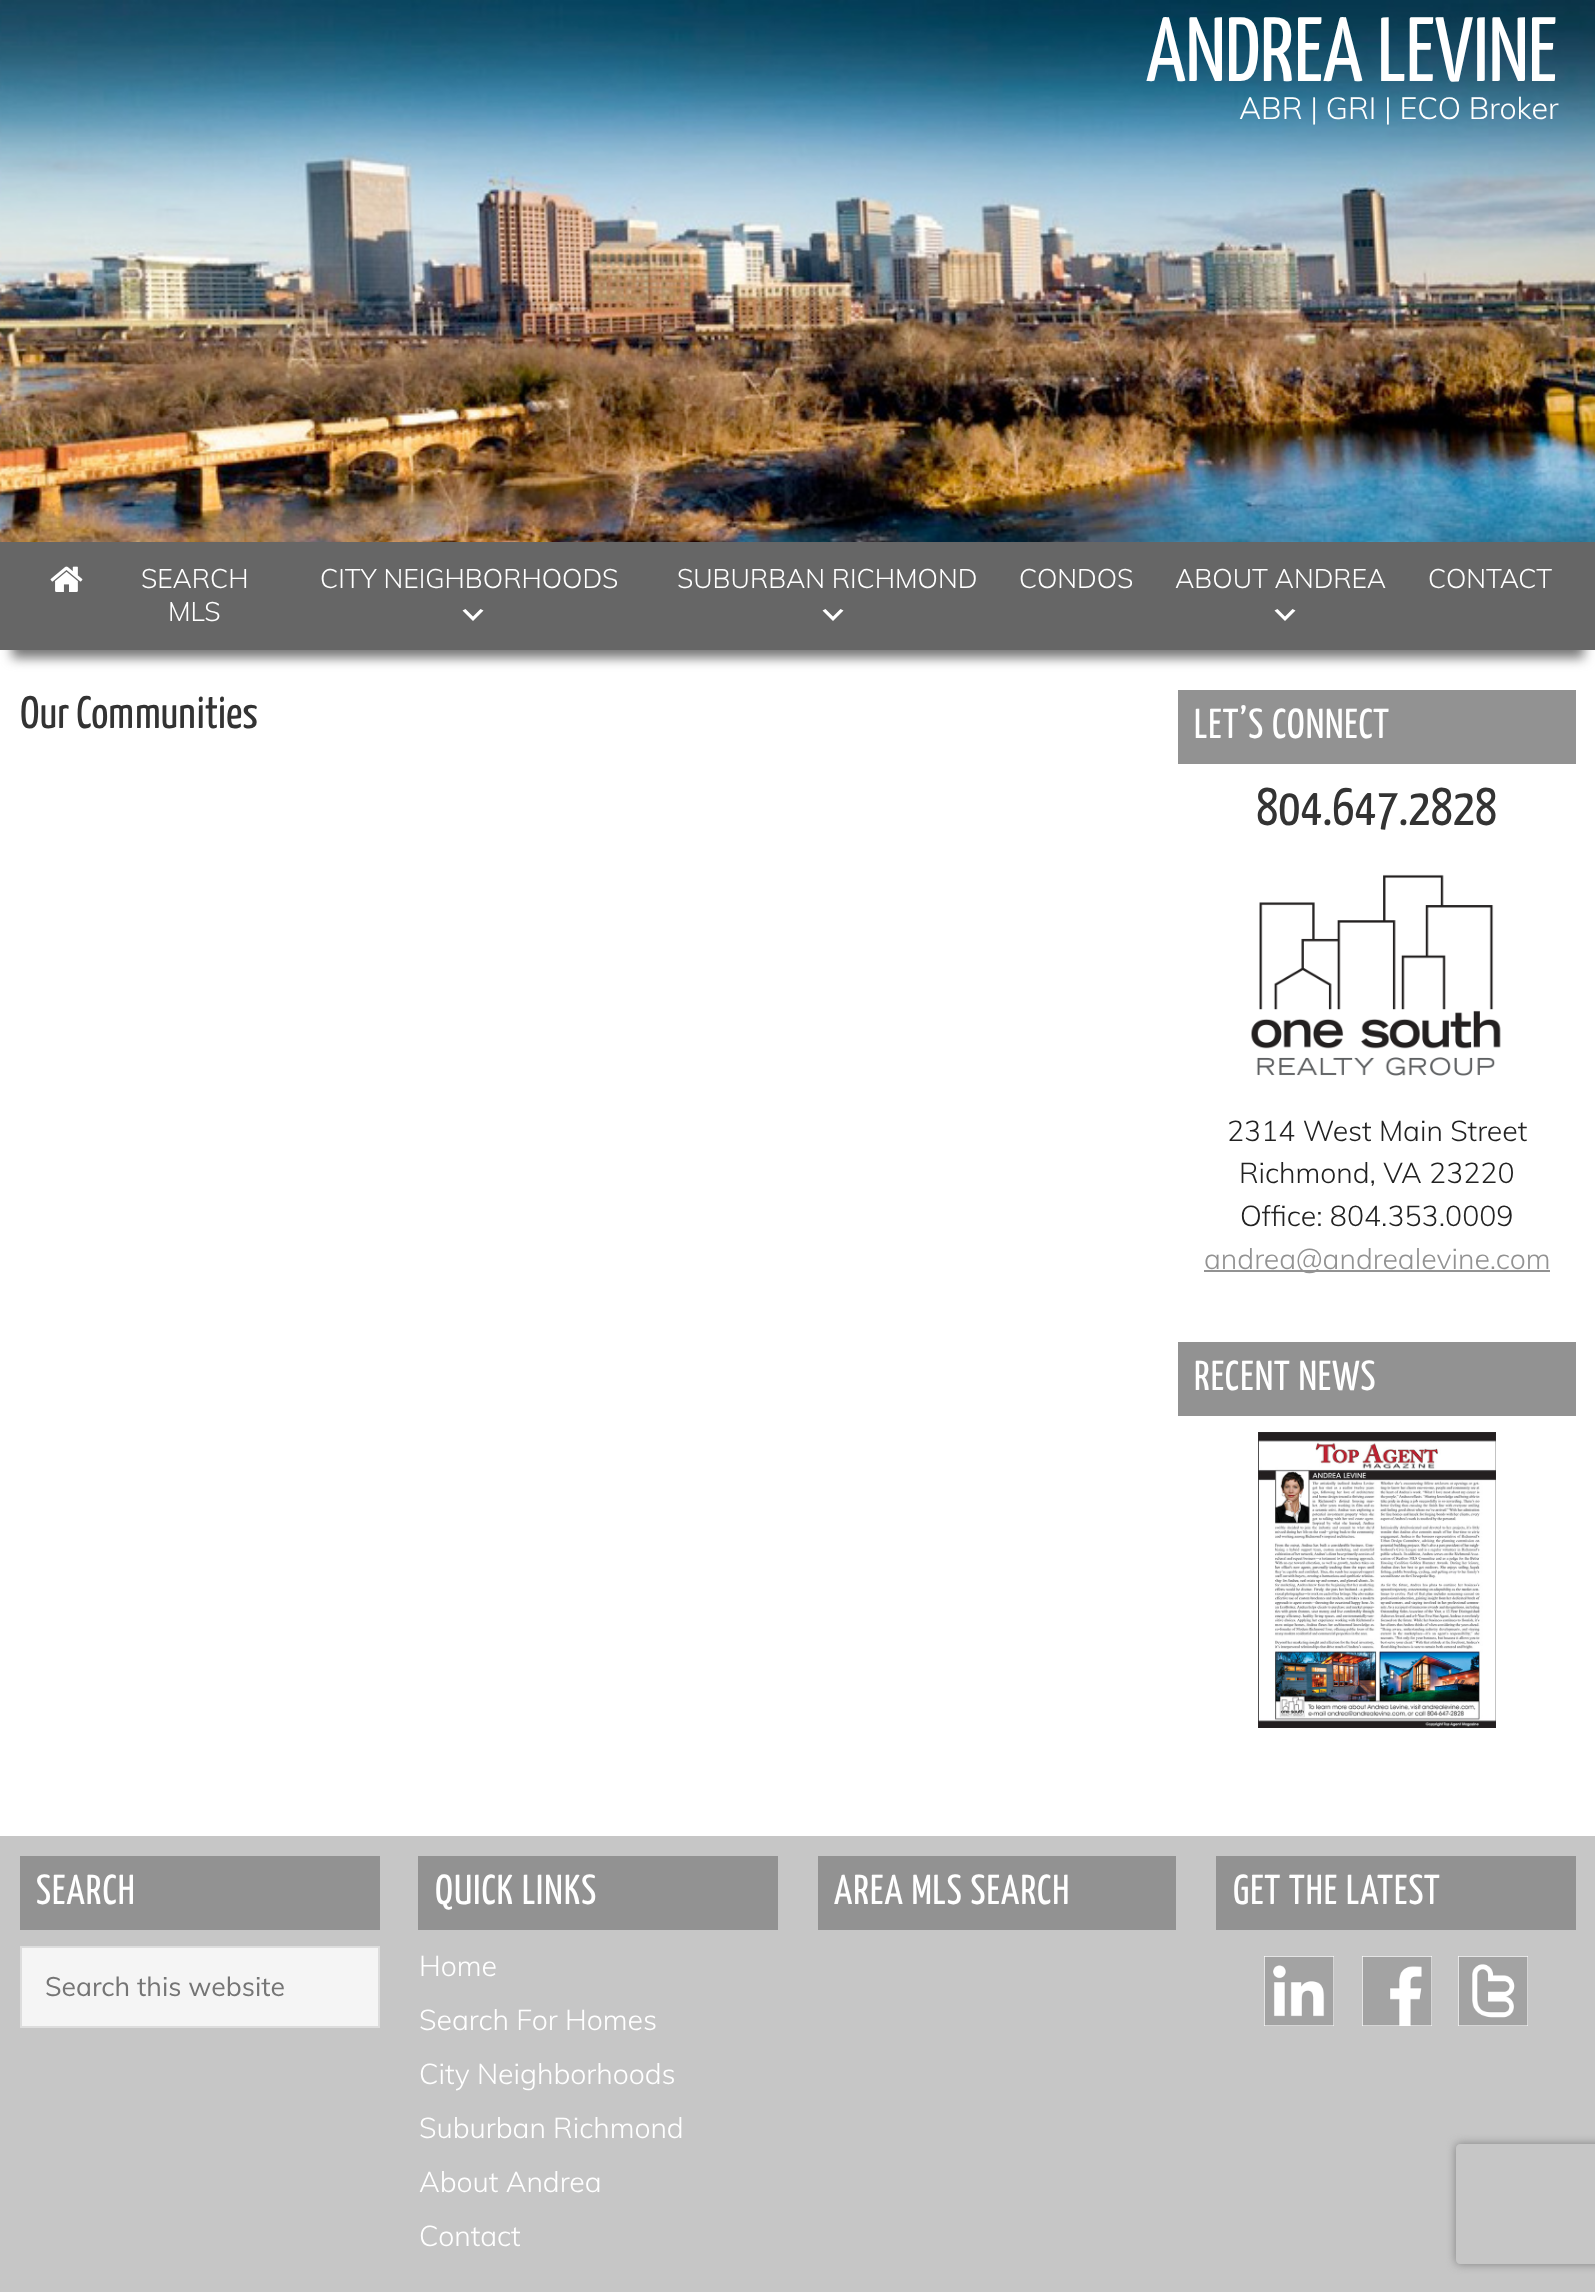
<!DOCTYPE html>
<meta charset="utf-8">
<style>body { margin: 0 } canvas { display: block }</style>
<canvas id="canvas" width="1595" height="2292"></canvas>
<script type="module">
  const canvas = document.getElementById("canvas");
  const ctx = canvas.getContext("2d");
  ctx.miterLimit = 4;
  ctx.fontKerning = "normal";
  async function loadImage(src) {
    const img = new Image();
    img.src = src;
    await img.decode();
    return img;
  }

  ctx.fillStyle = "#ffffff";
  ctx.fillRect(0, 0, 1595, 2292);
  ctx.drawImage(await loadImage("img1.png"), 0, 0, 1595, 542);
  ctx.font = "200 91px Yanone Kaffeesatz";
  ctx.fillText("ANDREA LEVINE", 1146, 81);
  ctx.font = "300 30.4px Muli";
  ctx.fillText("ABR | GRI | ECO Broker", 1239, 119);
  ctx.fillStyle = "#777777";
  ctx.filter = "blur(6px)";
  ctx.beginPath();
  ctx.rect(12, 574, 1572, 84);
  ctx.fill();
  ctx.filter = "none";
  ctx.fillStyle = "#666666";
  ctx.fillRect(0, 542, 1595, 108);
  ctx.drawImage(await loadImage("img2.png"), 50, 566, 33, 26);
  ctx.font = "300 26.6px Muli";
  ctx.fillStyle = "#ffffff";
  ctx.fillText("SEARCH", 141, 588);
  ctx.fillText("MLS", 168, 621);
  ctx.fillText("CITY NEIGHBORHOODS", 320, 588);
  ctx.beginPath();
  ctx.moveTo(465.5, 609);
  ctx.lineTo(473, 616.5);
  ctx.lineTo(480.5, 609);
  ctx.lineTo(483.5, 610.5);
  ctx.lineTo(473, 621);
  ctx.lineTo(462.5, 610.5);
  ctx.closePath();
  ctx.fill();
  ctx.fillText("SUBURBAN RICHMOND", 677, 588);
  ctx.beginPath();
  ctx.moveTo(825.5, 609);
  ctx.lineTo(833, 616.5);
  ctx.lineTo(840.5, 609);
  ctx.lineTo(843.5, 610.5);
  ctx.lineTo(833, 621);
  ctx.lineTo(822.5, 610.5);
  ctx.closePath();
  ctx.fill();
  ctx.fillText("CONDOS", 1019, 588);
  ctx.fillText("ABOUT ANDREA", 1175, 588);
  ctx.beginPath();
  ctx.moveTo(1277.5, 609);
  ctx.lineTo(1285, 616.5);
  ctx.lineTo(1292.5, 609);
  ctx.lineTo(1295.5, 610.5);
  ctx.lineTo(1285, 621);
  ctx.lineTo(1274.5, 610.5);
  ctx.closePath();
  ctx.fill();
  ctx.fillText("CONTACT", 1428, 588);
  ctx.font = "200 45.5px Yanone Kaffeesatz";
  ctx.fillStyle = "#333333";
  ctx.fillText("Our Communities", 20, 728);
  ctx.fillStyle = "#929292";
  ctx.fillRect(1178, 690, 398, 74);
  ctx.letterSpacing = "1.1px";
  ctx.font = "200 41.75px Yanone Kaffeesatz";
  ctx.fillStyle = "#ffffff";
  ctx.fillText("LET’S CONNECT", 1194, 738);
  ctx.letterSpacing = "0px";
  ctx.font = "200 53px Yanone Kaffeesatz";
  ctx.fillStyle = "#333333";
  ctx.fillText("804.647.2828", 1256, 825);
  ctx.drawImage(await loadImage("img3.png"), 1251, 874, 250, 202);
  ctx.font = "300 28.5px Muli";
  ctx.fillStyle = "#222222";
  ctx.fillText("2314 West Main Street", 1227, 1141);
  ctx.fillText("Richmond, VA 23220", 1239, 1183);
  ctx.fillText("Office: 804.353.0009", 1240, 1226);
  ctx.fillStyle = "#929292";
  ctx.fillRect(1204, 1270, 346, 2);
  ctx.fillText("andrea@andrealevine.com", 1204, 1269);
  ctx.fillRect(1178, 1342, 398, 74);
  ctx.letterSpacing = "1.1px";
  ctx.font = "200 41.75px Yanone Kaffeesatz";
  ctx.fillStyle = "#ffffff";
  ctx.fillText("RECENT NEWS", 1194, 1390);
  ctx.drawImage(await loadImage("img4.png"), 1258, 1432, 238, 296);
  ctx.fillStyle = "#c6c6c6";
  ctx.fillRect(0, 1836, 1595, 456);
  ctx.fillStyle = "#929292";
  ctx.fillRect(20, 1856, 360, 74);
  ctx.fillStyle = "#ffffff";
  ctx.fillText("SEARCH", 36, 1904);
  ctx.fillStyle = "#f5f5f5";
  ctx.beginPath();
  ctx.rect(21, 1947, 358, 80);
  ctx.fill();
  ctx.strokeStyle = "#dddddd";
  ctx.lineWidth = 2;
  ctx.stroke();
  ctx.letterSpacing = "0px";
  ctx.font = "26.6px Muli";
  ctx.fillStyle = "#757575";
  ctx.fillText("Search this website", 45, 1996);
  ctx.fillStyle = "#929292";
  ctx.fillRect(418, 1856, 360, 74);
  ctx.letterSpacing = "1.1px";
  ctx.font = "200 41.75px Yanone Kaffeesatz";
  ctx.fillStyle = "#ffffff";
  ctx.fillText("QUICK LINKS", 435, 1904);
  ctx.letterSpacing = "0px";
  ctx.font = "300 28.5px Muli";
  ctx.fillText("Home", 419, 1976);
  ctx.fillText("Search For Homes", 419, 2030);
  ctx.fillText("City Neighborhoods", 419, 2084);
  ctx.fillText("Suburban Richmond", 419, 2138);
  ctx.fillText("About Andrea", 419, 2192);
  ctx.fillText("Contact", 419, 2246);
  ctx.fillStyle = "#929292";
  ctx.fillRect(818, 1856, 358, 74);
  ctx.letterSpacing = "1.1px";
  ctx.font = "200 41.75px Yanone Kaffeesatz";
  ctx.fillStyle = "#ffffff";
  ctx.fillText("AREA MLS SEARCH", 834, 1904);
  ctx.fillStyle = "#929292";
  ctx.fillRect(1216, 1856, 360, 74);
  ctx.fillStyle = "#ffffff";
  ctx.fillText("GET THE LATEST", 1233, 1904);
  ctx.drawImage(await loadImage("img5.png"), 1264, 1956, 70, 70);
  ctx.drawImage(await loadImage("img6.png"), 1362, 1956, 70, 70);
  ctx.drawImage(await loadImage("img7.png"), 1458, 1956, 70, 70);
  ctx.save();
  ctx.beginPath();
  ctx.moveTo(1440, 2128);
  ctx.lineTo(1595, 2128);
  ctx.lineTo(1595, 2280);
  ctx.lineTo(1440, 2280);
  ctx.closePath();
  ctx.moveTo(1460, 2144);
  ctx.lineTo(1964, 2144);
  ctx.bezierCurveTo(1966, 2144, 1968, 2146, 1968, 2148);
  ctx.lineTo(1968, 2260);
  ctx.bezierCurveTo(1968, 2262, 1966, 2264, 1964, 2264);
  ctx.lineTo(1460, 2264);
  ctx.bezierCurveTo(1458, 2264, 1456, 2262, 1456, 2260);
  ctx.lineTo(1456, 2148);
  ctx.bezierCurveTo(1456, 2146, 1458, 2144, 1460, 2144);
  ctx.closePath();
  ctx.clip("evenodd");
  ctx.fillStyle = "#808080";
  ctx.filter = "blur(5px)";
  ctx.beginPath();
  ctx.roundRect(1456, 2144, 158, 120, 4);
  ctx.fill();
  ctx.filter = "none";
  ctx.restore();
</script>
